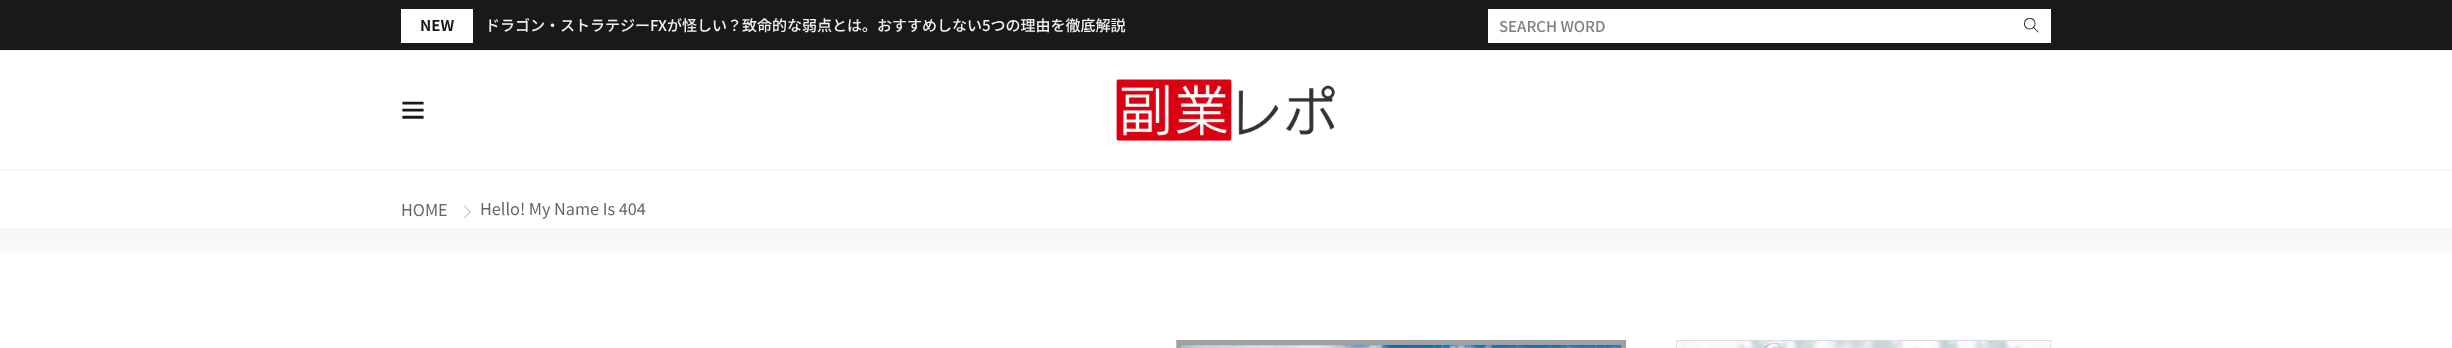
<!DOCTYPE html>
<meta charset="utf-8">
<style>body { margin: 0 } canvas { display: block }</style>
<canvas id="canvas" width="2452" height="348"></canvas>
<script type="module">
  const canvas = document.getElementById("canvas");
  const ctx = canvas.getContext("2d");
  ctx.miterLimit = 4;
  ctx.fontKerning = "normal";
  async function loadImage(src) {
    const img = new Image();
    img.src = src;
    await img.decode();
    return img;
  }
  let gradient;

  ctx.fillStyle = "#ffffff";
  ctx.fillRect(0, 0, 2452, 348);
  ctx.fillStyle = "#191919";
  ctx.fillRect(0, 0, 2452, 50);
  ctx.fillStyle = "#ffffff";
  ctx.fillRect(401, 9, 72, 34);
  ctx.font = "bold 15px Noto Sans JP";
  ctx.fillStyle = "#191919";
  ctx.fillText("NEW", 420, 31);
  ctx.font = "500 15px Noto Sans JP";
  ctx.fillStyle = "#f2f2f2";
  ctx.fillText("ドラゴン・ストラテジーFXが怪しい？致命的な弱点とは。おすすめしない5つの理由を徹底解説", 485, 31);
  ctx.fillStyle = "#ffffff";
  ctx.fillRect(1488, 9, 563, 34);
  ctx.fillStyle = "#808080";
  ctx.fillText("SEARCH WORD", 1499, 32);
  ctx.font = "15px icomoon";
  ctx.fillStyle = "#191919";
  ctx.fillText("󢀐", 2024, 32);
  ctx.fillStyle = "#f2f2f2";
  ctx.fillRect(0, 50, 2452, 1);
  ctx.fillRect(0, 170, 2452, 1);
  ctx.font = "24px icomoon";
  ctx.fillStyle = "#191919";
  ctx.fillText("󢂎", 401, 120);
  ctx.drawImage(await loadImage("img1.png"), 1116, 79, 219, 62);
  ctx.font = "16.25px Noto Sans JP";
  ctx.fillStyle = "#666666";
  ctx.fillText("HOME", 401, 216);
  ctx.font = "14px icomoon";
  ctx.fillStyle = "#b3b3b3";
  ctx.fillText("󢁉", 460, 218);
  ctx.font = "16.25px Noto Sans JP";
  ctx.fillStyle = "#666666";
  ctx.fillText("Hello! My Name Is 404", 480, 215);
  gradient = ctx.createLinearGradient(1226, 227, 1226, 265);
  gradient.addColorStop(0, "#f5f5f5");
  gradient.addColorStop(1, "#ffffff");
  ctx.fillStyle = gradient;
  ctx.fillRect(0, 228, 2452, 27);
  ctx.drawImage(await loadImage("img2.png"), 1176, 340, 451, 8);
  ctx.drawImage(await loadImage("img3.png"), 1676, 340, 376, 8);
</script>
